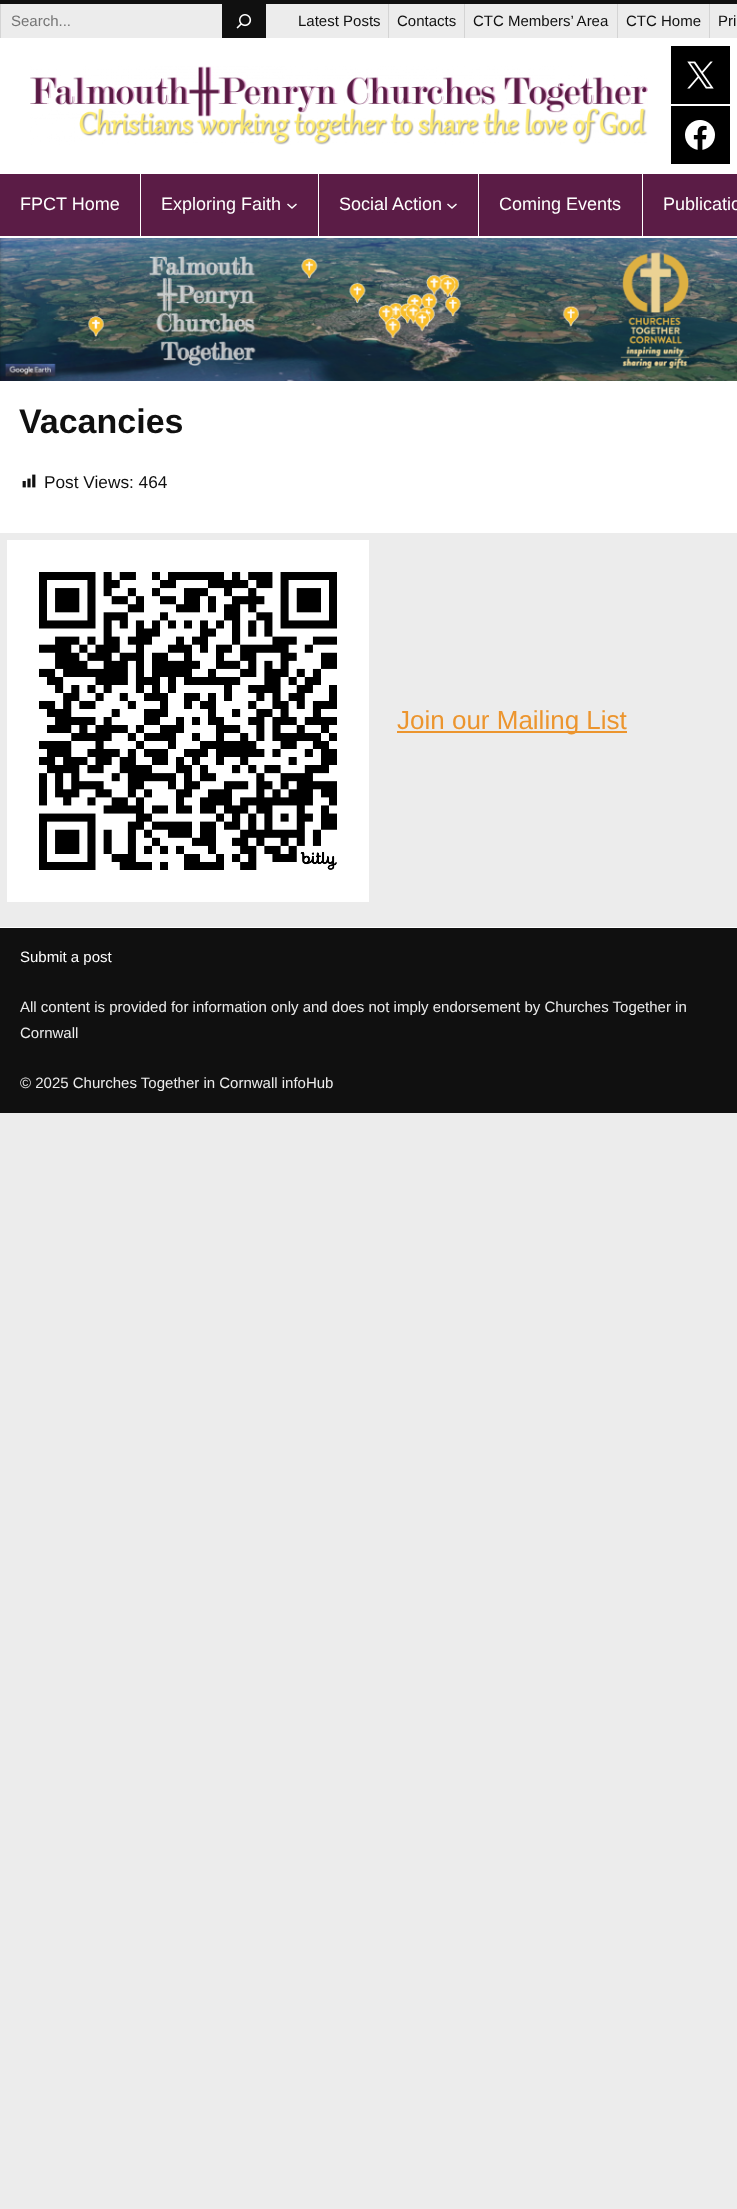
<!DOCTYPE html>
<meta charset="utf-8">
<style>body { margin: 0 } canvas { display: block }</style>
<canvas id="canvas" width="737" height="2209"></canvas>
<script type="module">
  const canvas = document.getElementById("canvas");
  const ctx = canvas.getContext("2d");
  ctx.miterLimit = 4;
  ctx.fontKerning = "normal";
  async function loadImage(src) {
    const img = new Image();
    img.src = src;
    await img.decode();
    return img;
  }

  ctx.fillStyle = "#ececec";
  ctx.fillRect(0, 0, 737, 2209);
  ctx.fillStyle = "#ffffff";
  ctx.fillRect(0, 381, 737, 152);
  ctx.fillRect(0, 38, 737, 136);
  ctx.fillStyle = "#101010";
  ctx.fillRect(0, 0, 737, 4);
  ctx.fillStyle = "#d4d4d4";
  ctx.fillRect(0, 4, 1, 34);
  ctx.font = "15px Liberation Sans";
  ctx.fillStyle = "#757575";
  ctx.fillText("Search...", 11, 26);
  ctx.fillStyle = "#101010";
  ctx.fillRect(222, 4, 44, 34);
  ctx.drawImage(await loadImage("img1.png"), 236, 14, 16, 15);
  ctx.fillStyle = "#d4d4d4";
  ctx.fillRect(388, 4, 1, 34);
  ctx.fillStyle = "#101010";
  ctx.fillText("Latest Posts", 298, 26);
  ctx.fillStyle = "#d4d4d4";
  ctx.fillRect(464, 4, 1, 34);
  ctx.fillStyle = "#101010";
  ctx.fillText("Contacts", 397, 26);
  ctx.fillStyle = "#d4d4d4";
  ctx.fillRect(617, 4, 1, 34);
  ctx.fillStyle = "#101010";
  ctx.fillText("CTC Members’ Area", 473, 26);
  ctx.fillStyle = "#d4d4d4";
  ctx.fillRect(709, 4, 1, 34);
  ctx.fillStyle = "#101010";
  ctx.fillText("CTC Home", 626, 26);
  ctx.fillText("Pri", 718, 26);
  ctx.drawImage(await loadImage("img2.png"), 30, 66, 618, 79);
  ctx.fillStyle = "#000000";
  ctx.fillRect(671, 46, 59, 58);
  ctx.drawImage(await loadImage("img3.png"), 687, 61, 27, 28);
  ctx.fillRect(671, 106, 59, 58);
  ctx.drawImage(await loadImage("img4.png"), 685, 120, 30, 30);
  ctx.fillStyle = "#5b1c46";
  ctx.fillRect(0, 174, 737, 62);
  ctx.fillStyle = "#ffffff";
  ctx.fillRect(0, 236, 737, 2);
  ctx.fillRect(140, 174, 1, 62);
  ctx.font = "18px Liberation Sans";
  ctx.fillText("FPCT Home", 20, 210);
  ctx.fillRect(318, 174, 1, 62);
  ctx.fillText("Exploring Faith", 161, 210);
  ctx.beginPath();
  ctx.moveTo(287.5, 204);
  ctx.lineTo(292, 208);
  ctx.lineTo(296.5, 204);
  ctx.strokeStyle = "#ffffff";
  ctx.lineWidth = 1.5;
  ctx.stroke();
  ctx.fillRect(478, 174, 1, 62);
  ctx.fillText("Social Action", 339, 210);
  ctx.beginPath();
  ctx.moveTo(447.5, 204);
  ctx.lineTo(452, 208);
  ctx.lineTo(456.5, 204);
  ctx.stroke();
  ctx.fillRect(642, 174, 1, 62);
  ctx.fillText("Coming Events", 499, 210);
  ctx.fillText("Publicatio", 663, 210);
  ctx.drawImage(await loadImage("img5.png"), 0, 238, 737, 143);
  ctx.font = "bold 34px Liberation Sans";
  ctx.fillStyle = "#101010";
  ctx.fillText("Vacancies", 19, 433);
  ctx.drawImage(await loadImage("img6.png"), 22, 474, 14, 14);
  ctx.font = "17.25px Liberation Sans";
  ctx.fillText("Post Views: 464", 44, 488);
  ctx.drawImage(await loadImage("img7.png"), 7, 540, 362, 362);
  ctx.fillStyle = "#ec952e";
  ctx.fillRect(397, 731, 230, 2);
  ctx.font = "26px Liberation Sans";
  ctx.fillText("Join our Mailing List", 397, 729);
  ctx.fillStyle = "#ffffff";
  ctx.fillRect(0, 927, 737, 1);
  ctx.fillStyle = "#101010";
  ctx.fillRect(0, 928, 737, 185);
  ctx.font = "15px Liberation Sans";
  ctx.fillStyle = "#ffffff";
  ctx.fillText("Submit a post", 20, 962);
  ctx.fillStyle = "#ececec";
  ctx.fillText("All content is provided for information only and does not imply endorsement by Churches Together in", 20, 1012);
  ctx.fillText("Cornwall", 20, 1038);
  ctx.fillText("© 2025 Churches Together in Cornwall infoHub", 20, 1088);
</script>
